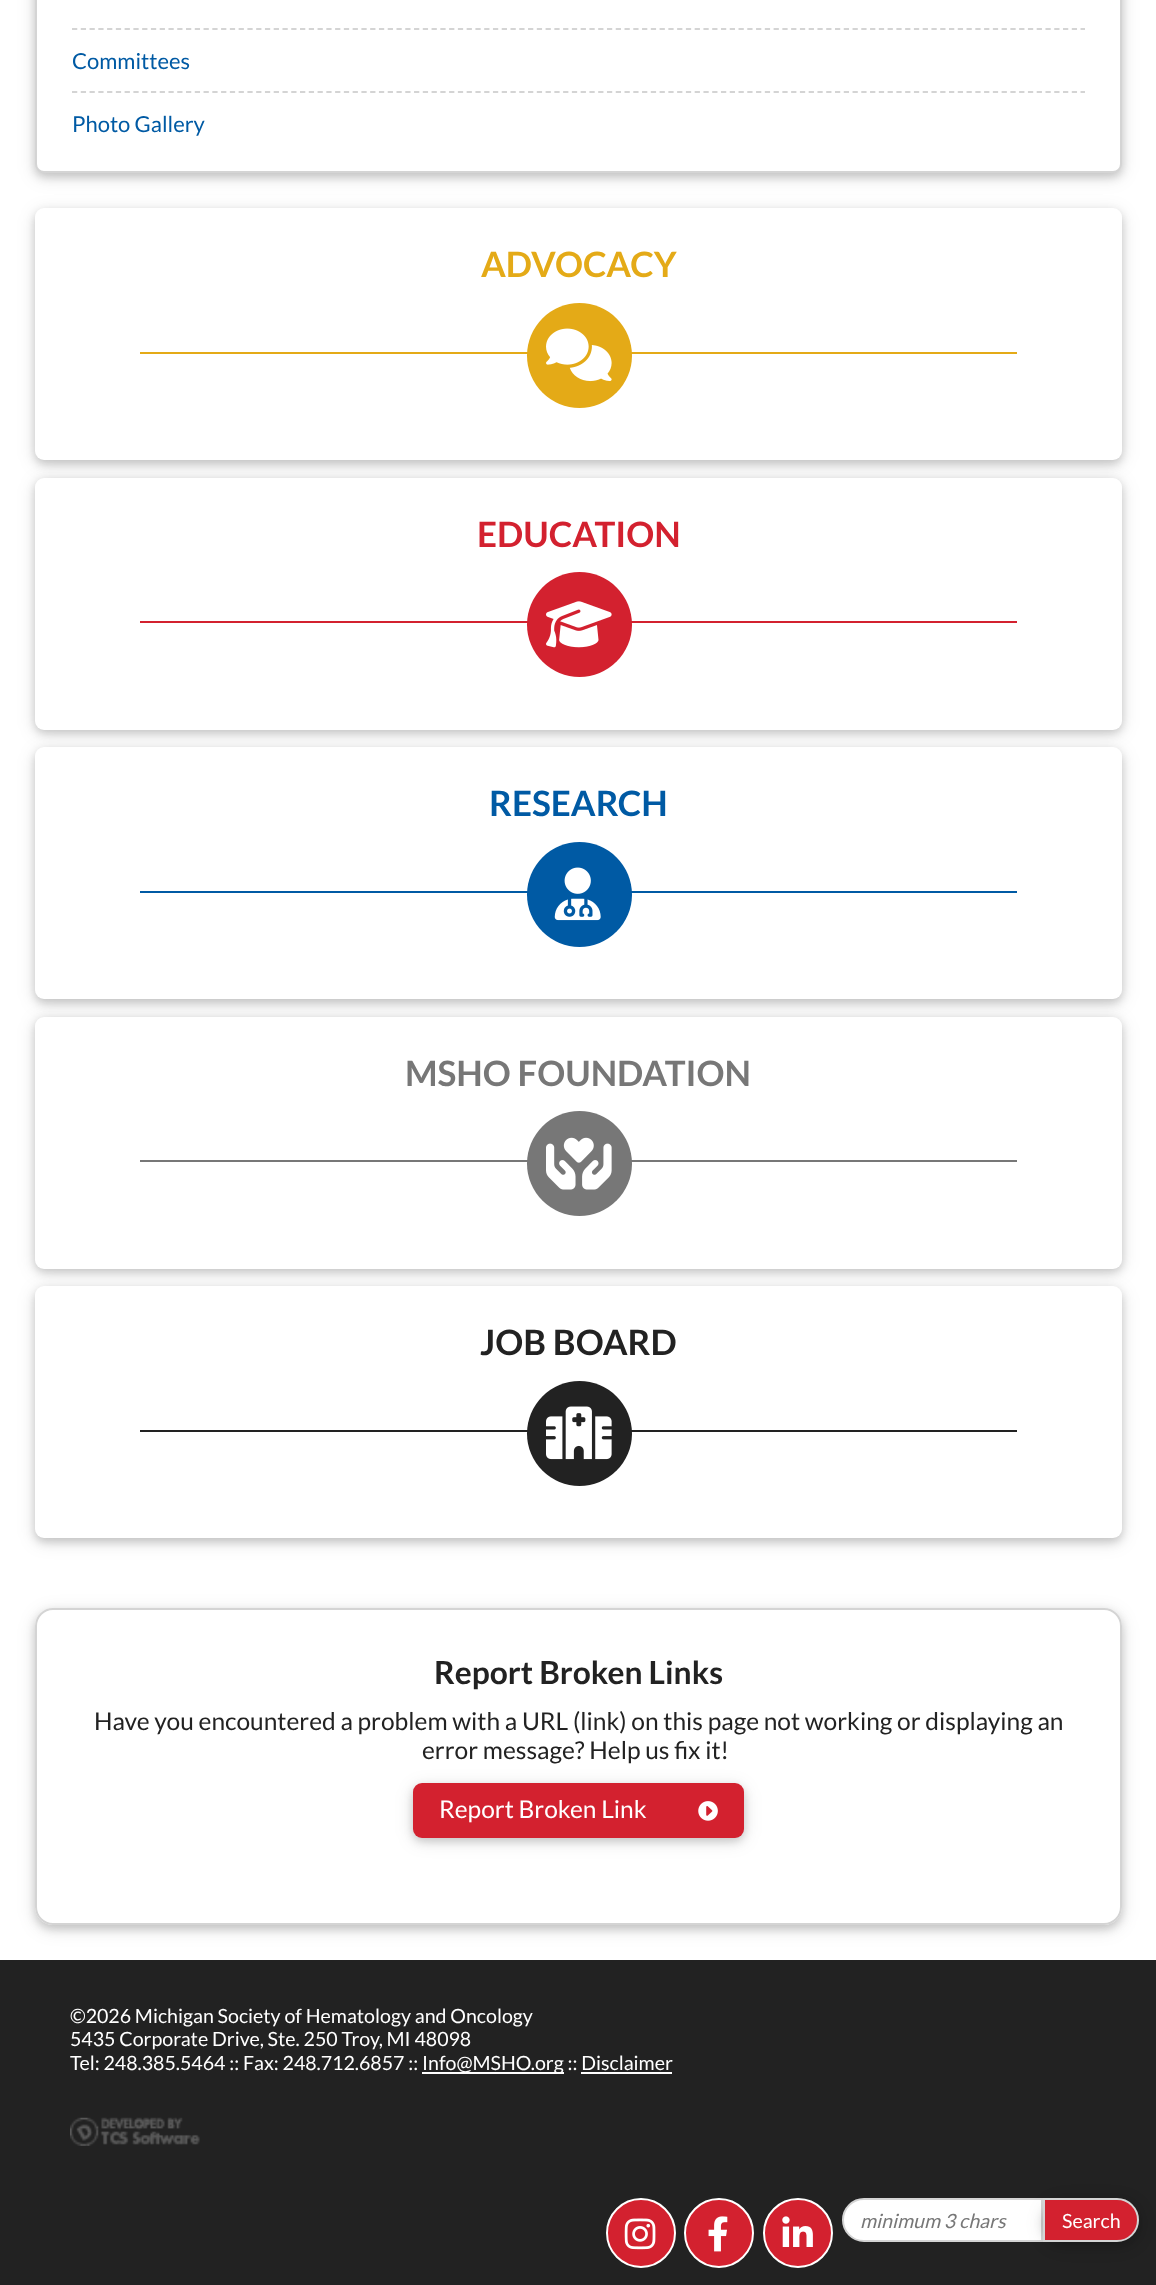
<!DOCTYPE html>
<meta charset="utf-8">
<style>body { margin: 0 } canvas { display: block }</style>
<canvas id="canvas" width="1156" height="2285"></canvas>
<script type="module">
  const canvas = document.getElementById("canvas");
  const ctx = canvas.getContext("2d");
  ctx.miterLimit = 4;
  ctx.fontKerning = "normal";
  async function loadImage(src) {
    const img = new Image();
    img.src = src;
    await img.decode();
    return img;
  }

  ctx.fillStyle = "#222222";
  ctx.fillRect(0, 0, 1156, 2285);
  ctx.fillStyle = "#ffffff";
  ctx.fillRect(0, 0, 1156, 1960);
  ctx.fillStyle = "rgba(0, 0, 0, 0.12)";
  ctx.filter = "blur(9px)";
  ctx.beginPath();
  ctx.roundRect(35, -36, 1087, 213, 9);
  ctx.fill();
  ctx.filter = "none";
  ctx.fillStyle = "rgba(0, 0, 0, 0.16)";
  ctx.filter = "blur(4.5px)";
  ctx.beginPath();
  ctx.roundRect(35, -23, 1087, 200, 9);
  ctx.fill();
  ctx.filter = "none";
  ctx.fillStyle = "#ffffff";
  ctx.beginPath();
  ctx.roundRect(36, -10, 1085, 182, 8);
  ctx.fill();
  ctx.strokeStyle = "#d4d4d4";
  ctx.lineWidth = 2;
  ctx.stroke();
  ctx.beginPath();
  ctx.moveTo(72, 29);
  ctx.lineTo(1085, 29);
  ctx.lineWidth = 1.8;
  ctx.setLineDash([5.25, 3.52]);
  ctx.stroke();
  ctx.beginPath();
  ctx.moveTo(72, 92);
  ctx.lineTo(1085, 92);
  ctx.stroke();
  ctx.font = "22px Lato";
  ctx.fillStyle = "#005aa4";
  ctx.fillText("Committees", 72, 69);
  ctx.fillText("Photo Gallery", 72, 132);
  ctx.fillStyle = "rgba(0, 0, 0, 0.12)";
  ctx.filter = "blur(9px)";
  ctx.beginPath();
  ctx.roundRect(35, 212, 1087, 252, 9);
  ctx.fill();
  ctx.filter = "none";
  ctx.fillStyle = "rgba(0, 0, 0, 0.16)";
  ctx.filter = "blur(4.5px)";
  ctx.beginPath();
  ctx.roundRect(35, 212, 1087, 252, 9);
  ctx.fill();
  ctx.filter = "none";
  ctx.fillStyle = "#ffffff";
  ctx.beginPath();
  ctx.roundRect(35, 208, 1087, 252, 9);
  ctx.fill();
  ctx.font = "bold 35px Lato";
  ctx.fillStyle = "#e4aa17";
  ctx.fillText("ADVOCACY", 481, 277);
  ctx.fillRect(140, 352, 877, 2);
  ctx.beginPath();
  ctx.arc(579.5, 355.5, 52.5, 0, Math.PI * 2);
  ctx.fill();
  ctx.drawImage(await loadImage("img1.png"), 546, 328, 66, 54);
  ctx.fillStyle = "rgba(0, 0, 0, 0.12)";
  ctx.filter = "blur(9px)";
  ctx.beginPath();
  ctx.roundRect(35, 481, 1087, 252, 9);
  ctx.fill();
  ctx.filter = "none";
  ctx.fillStyle = "rgba(0, 0, 0, 0.16)";
  ctx.filter = "blur(4.5px)";
  ctx.beginPath();
  ctx.roundRect(35, 481, 1087, 252, 9);
  ctx.fill();
  ctx.filter = "none";
  ctx.fillStyle = "#ffffff";
  ctx.beginPath();
  ctx.roundRect(35, 478, 1087, 252, 9);
  ctx.fill();
  ctx.fillStyle = "#d3212f";
  ctx.fillText("EDUCATION", 477, 547);
  ctx.fillRect(140, 621, 877, 2);
  ctx.beginPath();
  ctx.arc(579.5, 624.5, 52.5, 0, Math.PI * 2);
  ctx.fill();
  ctx.drawImage(await loadImage("img2.png"), 546, 601, 66, 47);
  ctx.fillStyle = "rgba(0, 0, 0, 0.12)";
  ctx.filter = "blur(9px)";
  ctx.beginPath();
  ctx.roundRect(35, 751, 1087, 252, 9);
  ctx.fill();
  ctx.filter = "none";
  ctx.fillStyle = "rgba(0, 0, 0, 0.16)";
  ctx.filter = "blur(4.5px)";
  ctx.beginPath();
  ctx.roundRect(35, 751, 1087, 252, 9);
  ctx.fill();
  ctx.filter = "none";
  ctx.fillStyle = "#ffffff";
  ctx.beginPath();
  ctx.roundRect(35, 747, 1087, 252, 9);
  ctx.fill();
  ctx.fillStyle = "#005aa4";
  ctx.fillText("RESEARCH", 489, 816);
  ctx.fillRect(140, 891, 877, 2);
  ctx.beginPath();
  ctx.arc(579.5, 894.5, 52.5, 0, Math.PI * 2);
  ctx.fill();
  ctx.drawImage(await loadImage("img3.png"), 554, 867, 47, 54);
  ctx.fillStyle = "rgba(0, 0, 0, 0.12)";
  ctx.filter = "blur(9px)";
  ctx.beginPath();
  ctx.roundRect(35, 1020, 1087, 252, 9);
  ctx.fill();
  ctx.filter = "none";
  ctx.fillStyle = "rgba(0, 0, 0, 0.16)";
  ctx.filter = "blur(4.5px)";
  ctx.beginPath();
  ctx.roundRect(35, 1020, 1087, 252, 9);
  ctx.fill();
  ctx.filter = "none";
  ctx.fillStyle = "#ffffff";
  ctx.beginPath();
  ctx.roundRect(35, 1017, 1087, 252, 9);
  ctx.fill();
  ctx.fillStyle = "#777777";
  ctx.fillText("MSHO FOUNDATION", 405, 1086);
  ctx.fillRect(140, 1160, 877, 2);
  ctx.beginPath();
  ctx.arc(579.5, 1163.5, 52.5, 0, Math.PI * 2);
  ctx.fill();
  ctx.drawImage(await loadImage("img4.png"), 546, 1137, 66, 53);
  ctx.fillStyle = "rgba(0, 0, 0, 0.12)";
  ctx.filter = "blur(9px)";
  ctx.beginPath();
  ctx.roundRect(35, 1290, 1087, 252, 9);
  ctx.fill();
  ctx.filter = "none";
  ctx.fillStyle = "rgba(0, 0, 0, 0.16)";
  ctx.filter = "blur(4.5px)";
  ctx.beginPath();
  ctx.roundRect(35, 1290, 1087, 252, 9);
  ctx.fill();
  ctx.filter = "none";
  ctx.fillStyle = "#ffffff";
  ctx.beginPath();
  ctx.roundRect(35, 1286, 1087, 252, 9);
  ctx.fill();
  ctx.fillStyle = "#222222";
  ctx.fillText("JOB BOARD", 480, 1355);
  ctx.fillRect(140, 1430, 877, 2);
  ctx.beginPath();
  ctx.arc(579.5, 1433.5, 52.5, 0, Math.PI * 2);
  ctx.fill();
  ctx.drawImage(await loadImage("img5.png"), 546, 1406, 66, 54);
  ctx.save();
  ctx.beginPath();
  ctx.moveTo(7, 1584);
  ctx.lineTo(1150, 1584);
  ctx.lineTo(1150, 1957);
  ctx.lineTo(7, 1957);
  ctx.closePath();
  ctx.moveTo(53, 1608);
  ctx.lineTo(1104, 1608);
  ctx.bezierCurveTo(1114, 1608, 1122, 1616, 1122, 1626);
  ctx.lineTo(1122, 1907);
  ctx.bezierCurveTo(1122, 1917, 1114, 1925, 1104, 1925);
  ctx.lineTo(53, 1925);
  ctx.bezierCurveTo(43, 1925, 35, 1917, 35, 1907);
  ctx.lineTo(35, 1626);
  ctx.bezierCurveTo(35, 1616, 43, 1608, 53, 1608);
  ctx.closePath();
  ctx.clip("evenodd");
  ctx.fillStyle = "rgba(0, 0, 0, 0.12)";
  ctx.filter = "blur(9px)";
  ctx.beginPath();
  ctx.roundRect(35, 1612, 1087, 317, 18);
  ctx.fill();
  ctx.filter = "none";
  ctx.restore();
  ctx.save();
  ctx.beginPath();
  ctx.moveTo(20, 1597);
  ctx.lineTo(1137, 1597);
  ctx.lineTo(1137, 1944);
  ctx.lineTo(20, 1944);
  ctx.closePath();
  ctx.moveTo(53, 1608);
  ctx.lineTo(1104, 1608);
  ctx.bezierCurveTo(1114, 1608, 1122, 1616, 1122, 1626);
  ctx.lineTo(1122, 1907);
  ctx.bezierCurveTo(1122, 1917, 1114, 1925, 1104, 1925);
  ctx.lineTo(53, 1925);
  ctx.bezierCurveTo(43, 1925, 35, 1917, 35, 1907);
  ctx.lineTo(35, 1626);
  ctx.bezierCurveTo(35, 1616, 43, 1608, 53, 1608);
  ctx.closePath();
  ctx.clip("evenodd");
  ctx.fillStyle = "rgba(0, 0, 0, 0.16)";
  ctx.filter = "blur(4.5px)";
  ctx.beginPath();
  ctx.roundRect(35, 1612, 1087, 317, 18);
  ctx.fill();
  ctx.filter = "none";
  ctx.restore();
  ctx.beginPath();
  ctx.roundRect(36, 1609, 1085, 315, 17);
  ctx.lineWidth = 2;
  ctx.setLineDash([]);
  ctx.stroke();
  ctx.font = "bold 31.75px Lato";
  ctx.fillText("Report Broken Links", 434, 1684);
  ctx.font = "24.5px Lato";
  ctx.fillText("Have you encountered a problem with a URL (link) on this page not working or displaying an", 94, 1730);
  ctx.fillText("error message? Help us fix it!", 422, 1759);
  ctx.fillStyle = "rgba(0, 0, 0, 0.12)";
  ctx.filter = "blur(9px)";
  ctx.beginPath();
  ctx.roundRect(413, 1787, 331, 54, 9);
  ctx.fill();
  ctx.filter = "none";
  ctx.fillStyle = "rgba(0, 0, 0, 0.16)";
  ctx.filter = "blur(4.5px)";
  ctx.beginPath();
  ctx.roundRect(413, 1787, 331, 54, 9);
  ctx.fill();
  ctx.filter = "none";
  ctx.fillStyle = "#d3212f";
  ctx.beginPath();
  ctx.roundRect(413, 1783, 331, 55, 9);
  ctx.fill();
  ctx.fillStyle = "#ffffff";
  ctx.fillText("Report Broken Link", 439, 1818);
  ctx.drawImage(await loadImage("img6.png"), 698, 1801, 20, 20);
  ctx.font = "19.6px Lato";
  ctx.fillText("©2026 Michigan Society of Hematology and Oncology", 70, 2023);
  ctx.fillText("5435 Corporate Drive, Ste. 250 Troy, MI 48098", 70, 2046);
  ctx.fillText("Tel: 248.385.5464 :: Fax: 248.712.6857 ::", 70, 2070);
  ctx.fillRect(422, 2072, 142, 2);
  ctx.fillText("Info@MSHO.org :: Disclaimer", 422, 2070);
  ctx.fillRect(581, 2072, 91, 2);
  ctx.drawImage(await loadImage("img7.png"), 70, 2117, 130, 29);
  ctx.fillStyle = "#d3212f";
  ctx.beginPath();
  ctx.arc(641, 2233, 34, 0, Math.PI * 2);
  ctx.fill();
  ctx.strokeStyle = "#ffffff";
  ctx.stroke();
  ctx.drawImage(await loadImage("img8.png"), 624, 2218, 32, 32);
  ctx.beginPath();
  ctx.arc(719, 2233, 34, 0, Math.PI * 2);
  ctx.fill();
  ctx.stroke();
  ctx.drawImage(await loadImage("img9.png"), 708, 2216, 20, 36);
  ctx.beginPath();
  ctx.arc(798, 2233, 34, 0, Math.PI * 2);
  ctx.fill();
  ctx.stroke();
  ctx.drawImage(await loadImage("img10.png"), 782, 2216, 31, 31);
  ctx.fillStyle = "#ffffff";
  ctx.beginPath();
  ctx.roundRect(843, 2199, 199, 42, [21, 0, 0, 21]);
  ctx.fill();
  ctx.strokeStyle = "#d4d4d4";
  ctx.stroke();
  ctx.font = "italic 19.6px Lato";
  ctx.fillStyle = "#777777";
  ctx.fillText("minimum 3 chars", 860, 2228);
  ctx.fillStyle = "rgba(0, 0, 0, 0.12)";
  ctx.filter = "blur(9px)";
  ctx.beginPath();
  ctx.roundRect(1043, 2202, 96, 43, 21.5);
  ctx.fill();
  ctx.filter = "none";
  ctx.fillStyle = "rgba(0, 0, 0, 0.16)";
  ctx.filter = "blur(4.5px)";
  ctx.beginPath();
  ctx.roundRect(1043, 2202, 96, 43, 21.5);
  ctx.fill();
  ctx.filter = "none";
  ctx.fillStyle = "#d3212f";
  ctx.beginPath();
  ctx.roundRect(1044, 2199, 94, 42, [0, 21, 21, 0]);
  ctx.fill();
  ctx.stroke();
  ctx.font = "19.6px Lato";
  ctx.fillStyle = "#ffffff";
  ctx.fillText("Search", 1062, 2228);
</script>
